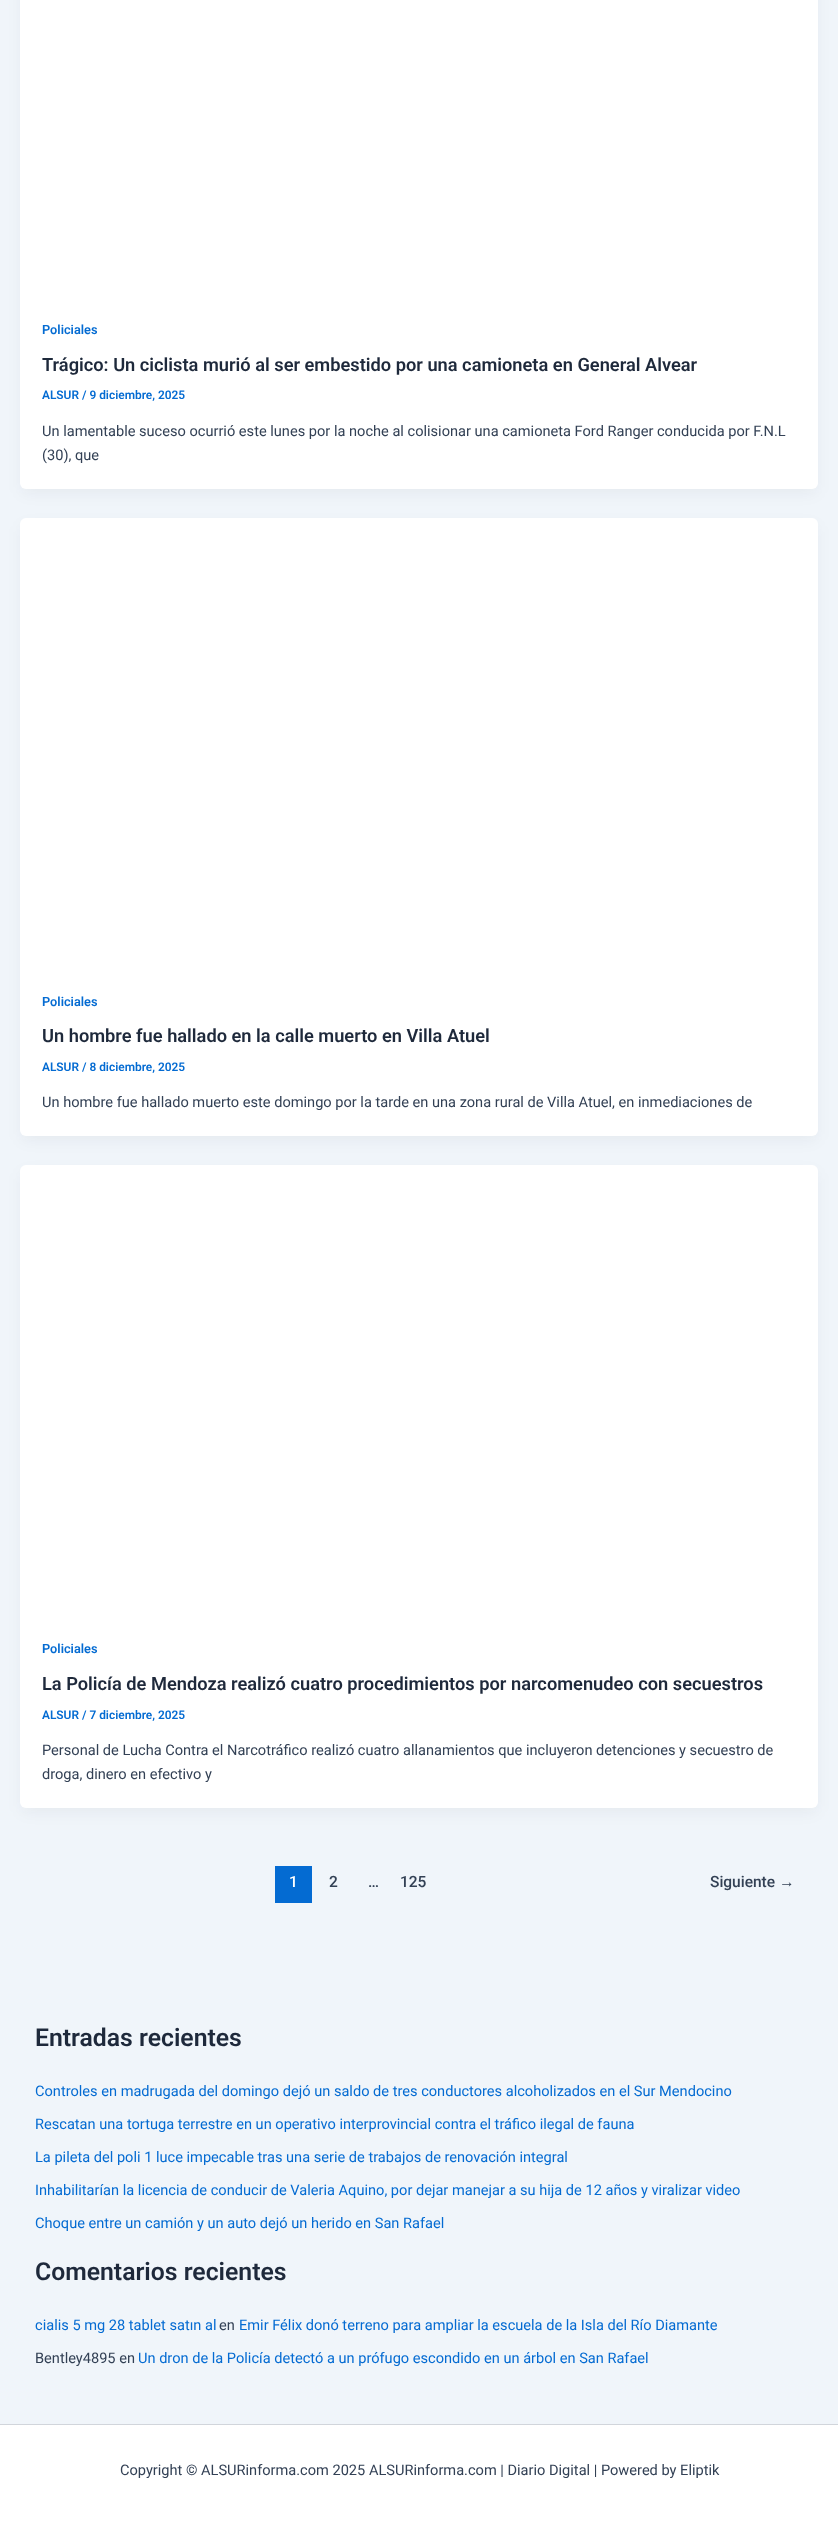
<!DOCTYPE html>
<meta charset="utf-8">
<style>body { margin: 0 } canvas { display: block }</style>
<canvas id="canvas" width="838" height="2525"></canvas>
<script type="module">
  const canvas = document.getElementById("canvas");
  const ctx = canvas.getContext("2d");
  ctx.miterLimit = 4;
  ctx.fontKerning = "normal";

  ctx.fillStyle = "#f0f5fa";
  ctx.fillRect(0, 0, 838, 2525);
  ctx.fillStyle = "rgba(16, 24, 40, 0.05)";
  ctx.filter = "blur(7.5px)";
  ctx.beginPath();
  ctx.roundRect(22, -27, 794, 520, 4);
  ctx.fill();
  ctx.filter = "none";
  ctx.fillStyle = "#ffffff";
  ctx.beginPath();
  ctx.roundRect(20, -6, 798, 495, 6);
  ctx.fill();
  ctx.font = "600 12.75px Roboto";
  ctx.fillStyle = "#046bd2";
  ctx.fillText("Policiales", 42, 334);
  ctx.font = "600 18.25px Roboto";
  ctx.fillStyle = "#1e293b";
  ctx.fillText("Trágico: Un ciclista murió al ser embestido por una camioneta en General Alvear", 42, 371);
  ctx.font = "600 11.9px Roboto";
  ctx.fillStyle = "#046bd2";
  ctx.fillText("ALSUR / 9 diciembre, 2025", 42, 399);
  ctx.font = "14.6px Roboto";
  ctx.fillStyle = "#334155";
  ctx.fillText("Un lamentable suceso ocurrió este lunes por la noche al colisionar una camioneta Ford Ranger conducida por F.N.L", 42, 436);
  ctx.fillText("(30), que", 42, 460);
  ctx.fillStyle = "rgba(16, 24, 40, 0.05)";
  ctx.filter = "blur(7.5px)";
  ctx.beginPath();
  ctx.roundRect(22, 526, 794, 614, 4);
  ctx.fill();
  ctx.filter = "none";
  ctx.fillStyle = "#ffffff";
  ctx.beginPath();
  ctx.roundRect(20, 518, 798, 618, 6);
  ctx.fill();
  ctx.font = "600 12.75px Roboto";
  ctx.fillStyle = "#046bd2";
  ctx.fillText("Policiales", 42, 1006);
  ctx.font = "600 18.25px Roboto";
  ctx.fillStyle = "#1e293b";
  ctx.fillText("Un hombre fue hallado en la calle muerto en Villa Atuel", 42, 1042);
  ctx.font = "600 11.9px Roboto";
  ctx.fillStyle = "#046bd2";
  ctx.fillText("ALSUR / 8 diciembre, 2025", 42, 1071);
  ctx.font = "14.6px Roboto";
  ctx.fillStyle = "#334155";
  ctx.fillText("Un hombre fue hallado muerto este domingo por la tarde en una zona rural de Villa Atuel, en inmediaciones de", 42, 1107);
  ctx.fillStyle = "rgba(16, 24, 40, 0.05)";
  ctx.filter = "blur(7.5px)";
  ctx.beginPath();
  ctx.roundRect(22, 1173, 794, 639, 4);
  ctx.fill();
  ctx.filter = "none";
  ctx.fillStyle = "#ffffff";
  ctx.beginPath();
  ctx.roundRect(20, 1165, 798, 643, 6);
  ctx.fill();
  ctx.font = "600 12.75px Roboto";
  ctx.fillStyle = "#046bd2";
  ctx.fillText("Policiales", 42, 1653);
  ctx.font = "600 18.25px Roboto";
  ctx.fillStyle = "#1e293b";
  ctx.fillText("La Policía de Mendoza realizó cuatro procedimientos por narcomenudeo con secuestros", 42, 1690);
  ctx.font = "600 11.9px Roboto";
  ctx.fillStyle = "#046bd2";
  ctx.fillText("ALSUR / 7 diciembre, 2025", 42, 1719);
  ctx.font = "14.6px Roboto";
  ctx.fillStyle = "#334155";
  ctx.fillText("Personal de Lucha Contra el Narcotráfico realizó cuatro allanamientos que incluyeron detenciones y secuestro de", 42, 1755);
  ctx.fillText("droga, dinero en efectivo y", 42, 1779);
  ctx.fillStyle = "#046bd2";
  ctx.fillRect(275, 1866, 37, 37);
  ctx.font = "500 15.5px Roboto";
  ctx.fillStyle = "#ffffff";
  ctx.fillText("1", 289, 1887);
  ctx.fillStyle = "#334155";
  ctx.fillText("2", 329, 1887);
  ctx.fillText("…", 368, 1887);
  ctx.fillText("125", 400, 1887);
  ctx.fillText("Siguiente", 710, 1887);
  ctx.font = "15.5px Liberation Sans";
  ctx.fillText("→", 779, 1887);
  ctx.font = "600 24.75px Roboto";
  ctx.fillStyle = "#1e293b";
  ctx.fillText("Entradas recientes", 35, 2046);
  ctx.font = "14.6px Roboto";
  ctx.fillStyle = "#046bd2";
  ctx.fillText("Controles en madrugada del domingo dejó un saldo de tres conductores alcoholizados en el Sur Mendocino", 35, 2096);
  ctx.fillText("Rescatan una tortuga terrestre en un operativo interprovincial contra el tráfico ilegal de fauna", 35, 2129);
  ctx.fillText("La pileta del poli 1 luce impecable tras una serie de trabajos de renovación integral", 35, 2162);
  ctx.fillText("Inhabilitarían la licencia de conducir de Valeria Aquino, por dejar manejar a su hija de 12 años y viralizar video", 35, 2195);
  ctx.fillText("Choque entre un camión y un auto dejó un herido en San Rafael", 35, 2228);
  ctx.font = "600 24.75px Roboto";
  ctx.fillStyle = "#1e293b";
  ctx.fillText("Comentarios recientes", 35, 2280);
  ctx.font = "14.6px Roboto";
  ctx.fillStyle = "#046bd2";
  ctx.fillText("cialis 5 mg 28 tablet satın al", 35, 2330);
  ctx.fillStyle = "#334155";
  ctx.fillText("en", 219, 2330);
  ctx.fillStyle = "#046bd2";
  ctx.fillText("Emir Félix donó terreno para ampliar la escuela de la Isla del Río Diamante", 239, 2330);
  ctx.fillStyle = "#334155";
  ctx.fillText("Bentley4895 en", 35, 2363);
  ctx.fillStyle = "#046bd2";
  ctx.fillText("Un dron de la Policía detectó a un prófugo escondido en un árbol en San Rafael", 138, 2363);
  ctx.fillStyle = "#ffffff";
  ctx.fillRect(0, 2425, 838, 100);
  ctx.fillStyle = "#d1d5db";
  ctx.fillRect(0, 2424, 838, 1);
  ctx.fillStyle = "#334155";
  ctx.fillText("Copyright © ALSURinforma.com 2025 ALSURinforma.com | Diario Digital | Powered by Eliptik", 120, 2475);
</script>
